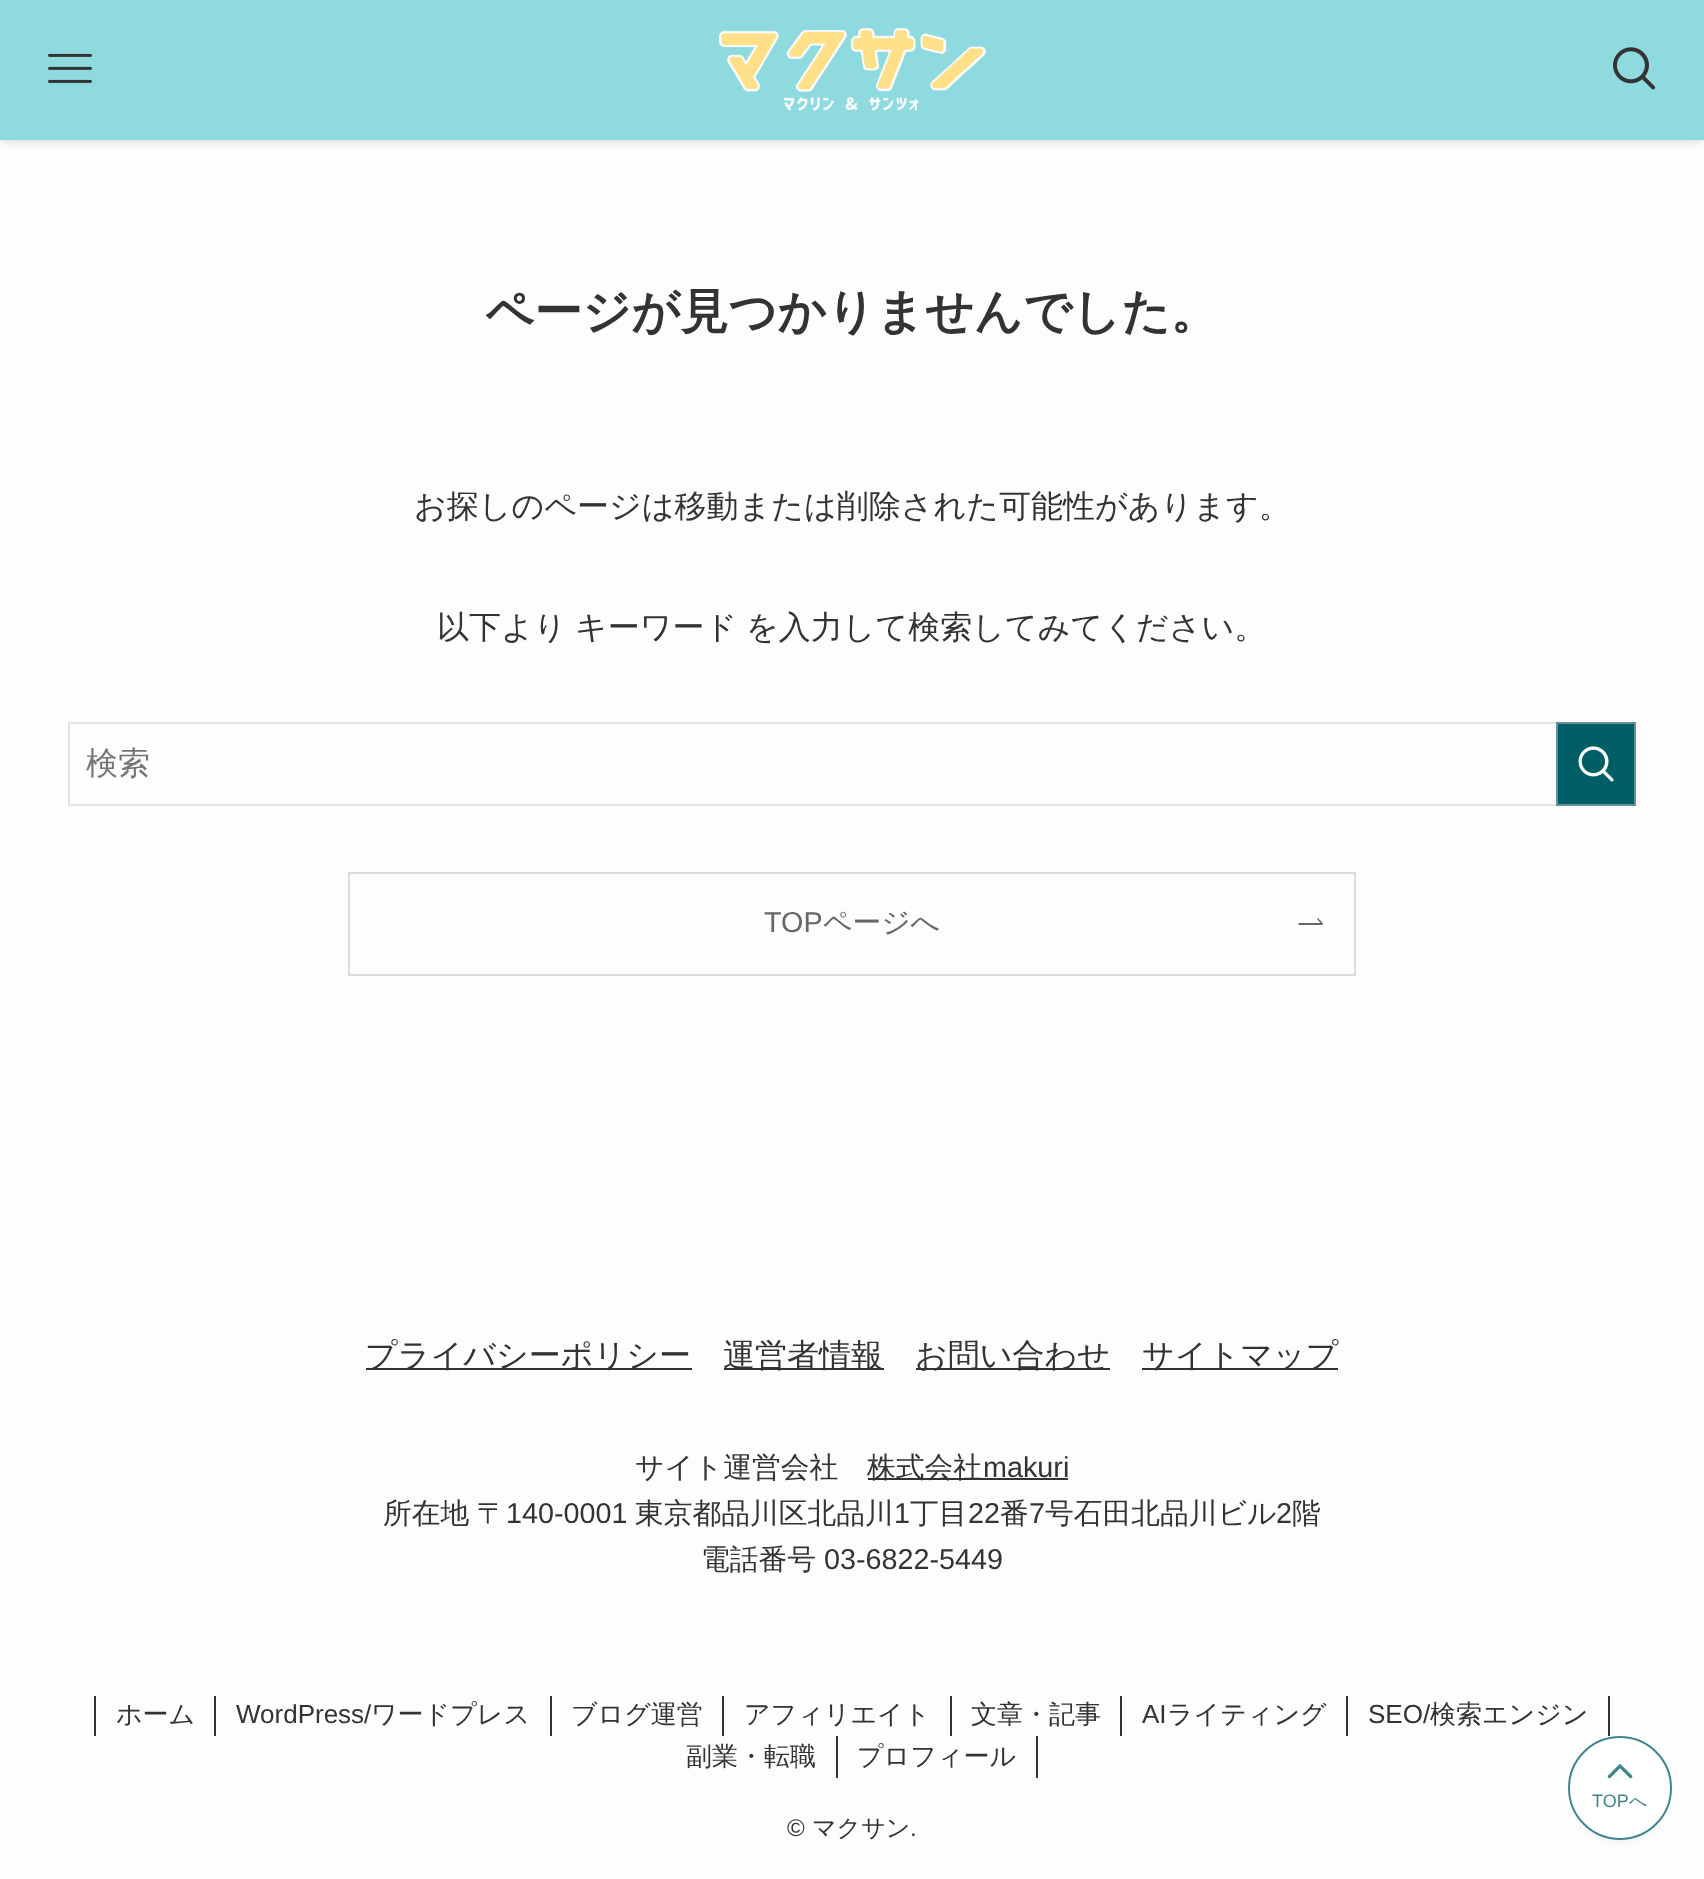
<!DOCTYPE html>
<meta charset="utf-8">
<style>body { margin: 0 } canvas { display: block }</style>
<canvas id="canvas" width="1704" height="1879"></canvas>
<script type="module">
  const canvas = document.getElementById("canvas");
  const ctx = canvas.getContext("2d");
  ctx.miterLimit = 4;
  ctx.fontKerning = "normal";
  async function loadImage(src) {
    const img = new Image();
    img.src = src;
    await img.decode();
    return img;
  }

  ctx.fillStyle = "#fdfdfd";
  ctx.fillRect(0, 0, 1704, 1879);
  ctx.fillStyle = "rgba(0, 0, 0, 0.12)";
  ctx.filter = "blur(4px)";
  ctx.beginPath();
  ctx.rect(0, 2, 1704, 140);
  ctx.fill();
  ctx.filter = "none";
  ctx.fillStyle = "#8edade";
  ctx.fillRect(0, 0, 1704, 140);
  ctx.drawImage(await loadImage("img1.png"), 48, 53, 44, 30);
  ctx.drawImage(await loadImage("img2.png"), 718, 28, 269, 83);
  ctx.drawImage(await loadImage("img3.png"), 1613, 47, 43, 43);
  ctx.font = "bold 48px WenQuanYi Zen Hei";
  ctx.fillStyle = "#333333";
  ctx.fillText("ページが見つかりませんでした。", 485, 328);
  ctx.font = "500 32px WenQuanYi Zen Hei";
  ctx.fillText("お探しのページは移動または削除された可能性があります。", 414, 517);
  ctx.wordSpacing = "-1px";
  ctx.fillText("以下より キーワード を入力して検索してみてください。", 437, 638);
  ctx.strokeStyle = "#e3e3e3";
  ctx.lineWidth = 2;
  ctx.strokeRect(69, 723, 1566, 82);
  ctx.wordSpacing = "0px";
  ctx.fillStyle = "#757575";
  ctx.fillText("検索", 86, 774);
  ctx.fillStyle = "#005f66";
  ctx.beginPath();
  ctx.rect(1557, 723, 78, 82);
  ctx.fill();
  ctx.strokeStyle = "#649397";
  ctx.stroke();
  ctx.drawImage(await loadImage("img4.png"), 1578, 746, 36, 36);
  ctx.strokeStyle = "#dcdcdc";
  ctx.strokeRect(349, 873, 1006, 102);
  ctx.font = "28.75px Liberation Sans";
  ctx.fillStyle = "#666666";
  ctx.fillText("TOP", 764, 932);
  ctx.font = "500 28.75px WenQuanYi Zen Hei";
  ctx.fillText("ページへ", 823, 932);
  ctx.beginPath();
  ctx.moveTo(1322.5, 925);
  ctx.lineTo(1298.5, 925);
  ctx.lineTo(1298.5, 923);
  ctx.lineTo(1320.5, 923);
  ctx.lineTo(1317, 919);
  ctx.lineTo(1318, 918);
  ctx.lineTo(1323, 923.5);
  ctx.closePath();
  ctx.fill();
  ctx.fillStyle = "#333333";
  ctx.fillRect(366, 1368, 326, 2);
  ctx.font = "500 32px WenQuanYi Zen Hei";
  ctx.fillText("プライバシーポリシー", 365, 1366);
  ctx.fillRect(724, 1368, 160, 2);
  ctx.fillText("運営者情報", 723, 1366);
  ctx.fillRect(916, 1368, 194, 2);
  ctx.fillText("お問い合わせ", 915, 1366);
  ctx.fillRect(1142, 1368, 196, 2);
  ctx.fillText("サイトマップ", 1142, 1366);
  ctx.font = "500 28.75px WenQuanYi Zen Hei";
  ctx.fillText("サイト運営会社", 635, 1477);
  ctx.fillRect(868, 1478, 200, 2);
  ctx.fillText("株式会社", 867, 1477);
  ctx.font = "28.75px Liberation Sans";
  ctx.fillText("makuri", 983, 1477);
  ctx.wordSpacing = "-1px";
  ctx.font = "500 28.75px WenQuanYi Zen Hei";
  ctx.fillText("所在地 〒", 383, 1523);
  ctx.wordSpacing = "0px";
  ctx.font = "28.75px Liberation Sans";
  ctx.fillText("140-0001", 506, 1523);
  ctx.font = "500 28.75px WenQuanYi Zen Hei";
  ctx.fillText("東京都品川区北品川", 635, 1523);
  ctx.font = "28.75px Liberation Sans";
  ctx.fillText("1", 894, 1523);
  ctx.font = "500 28.75px WenQuanYi Zen Hei";
  ctx.fillText("丁目", 910, 1523);
  ctx.font = "28.75px Liberation Sans";
  ctx.fillText("22", 968, 1523);
  ctx.font = "500 28.75px WenQuanYi Zen Hei";
  ctx.fillText("番", 1000, 1523);
  ctx.font = "28.75px Liberation Sans";
  ctx.fillText("7", 1029, 1523);
  ctx.font = "500 28.75px WenQuanYi Zen Hei";
  ctx.fillText("号石田北品川ビル", 1045, 1523);
  ctx.font = "28.75px Liberation Sans";
  ctx.fillText("2", 1276, 1523);
  ctx.font = "500 28.75px WenQuanYi Zen Hei";
  ctx.fillText("階", 1292, 1523);
  ctx.fillText("電話番号", 701, 1569);
  ctx.font = "28.75px Liberation Sans";
  ctx.fillText("03-6822-5449", 824, 1569);
  ctx.fillRect(214, 1696, 2, 40);
  ctx.fillRect(94, 1696, 2, 40);
  ctx.font = "500 26px WenQuanYi Zen Hei";
  ctx.fillText("ホーム", 116, 1723);
  ctx.fillRect(550, 1696, 2, 40);
  ctx.font = "26px Liberation Sans";
  ctx.fillText("WordPress/", 236, 1723);
  ctx.font = "500 26px WenQuanYi Zen Hei";
  ctx.fillText("ワードプレス", 371, 1723);
  ctx.fillRect(722, 1696, 2, 40);
  ctx.fillText("ブログ運営", 571, 1723);
  ctx.fillRect(950, 1696, 2, 40);
  ctx.fillText("アフィリエイト", 744, 1723);
  ctx.fillRect(1120, 1696, 2, 40);
  ctx.fillText("文章・記事", 971, 1723);
  ctx.fillRect(1346, 1696, 2, 40);
  ctx.font = "26px Liberation Sans";
  ctx.fillText("AI", 1142, 1723);
  ctx.font = "500 26px WenQuanYi Zen Hei";
  ctx.fillText("ライティング", 1167, 1723);
  ctx.fillRect(1608, 1696, 2, 40);
  ctx.font = "26px Liberation Sans";
  ctx.fillText("SEO/", 1368, 1723);
  ctx.font = "500 26px WenQuanYi Zen Hei";
  ctx.fillText("検索エンジン", 1430, 1723);
  ctx.fillRect(836, 1736, 2, 42);
  ctx.fillText("副業・転職", 686, 1765);
  ctx.fillRect(1036, 1736, 2, 42);
  ctx.fillText("プロフィール", 857, 1765);
  ctx.font = "24px Liberation Sans";
  ctx.fillText("©", 787, 1836);
  ctx.font = "500 24px WenQuanYi Zen Hei";
  ctx.fillText("マクサン", 812, 1836);
  ctx.font = "24px Liberation Sans";
  ctx.fillText(".", 910, 1836);
  ctx.fillStyle = "rgba(63, 63, 63, 0.1)";
  ctx.filter = "blur(4px)";
  ctx.beginPath();
  ctx.roundRect(1576, 1752, 88, 88, 44);
  ctx.fill();
  ctx.filter = "none";
  ctx.fillStyle = "#ffffff";
  ctx.beginPath();
  ctx.arc(1620, 1788, 51, 0, Math.PI * 2);
  ctx.fill();
  ctx.strokeStyle = "#3f878c";
  ctx.stroke();
  ctx.drawImage(await loadImage("img5.png"), 1607, 1764, 26, 15);
  ctx.font = "18px Liberation Sans";
  ctx.fillStyle = "#3f878c";
  ctx.fillText("TOP", 1592, 1807);
  ctx.font = "500 18px WenQuanYi Zen Hei";
  ctx.fillText("へ", 1629, 1807);
</script>
